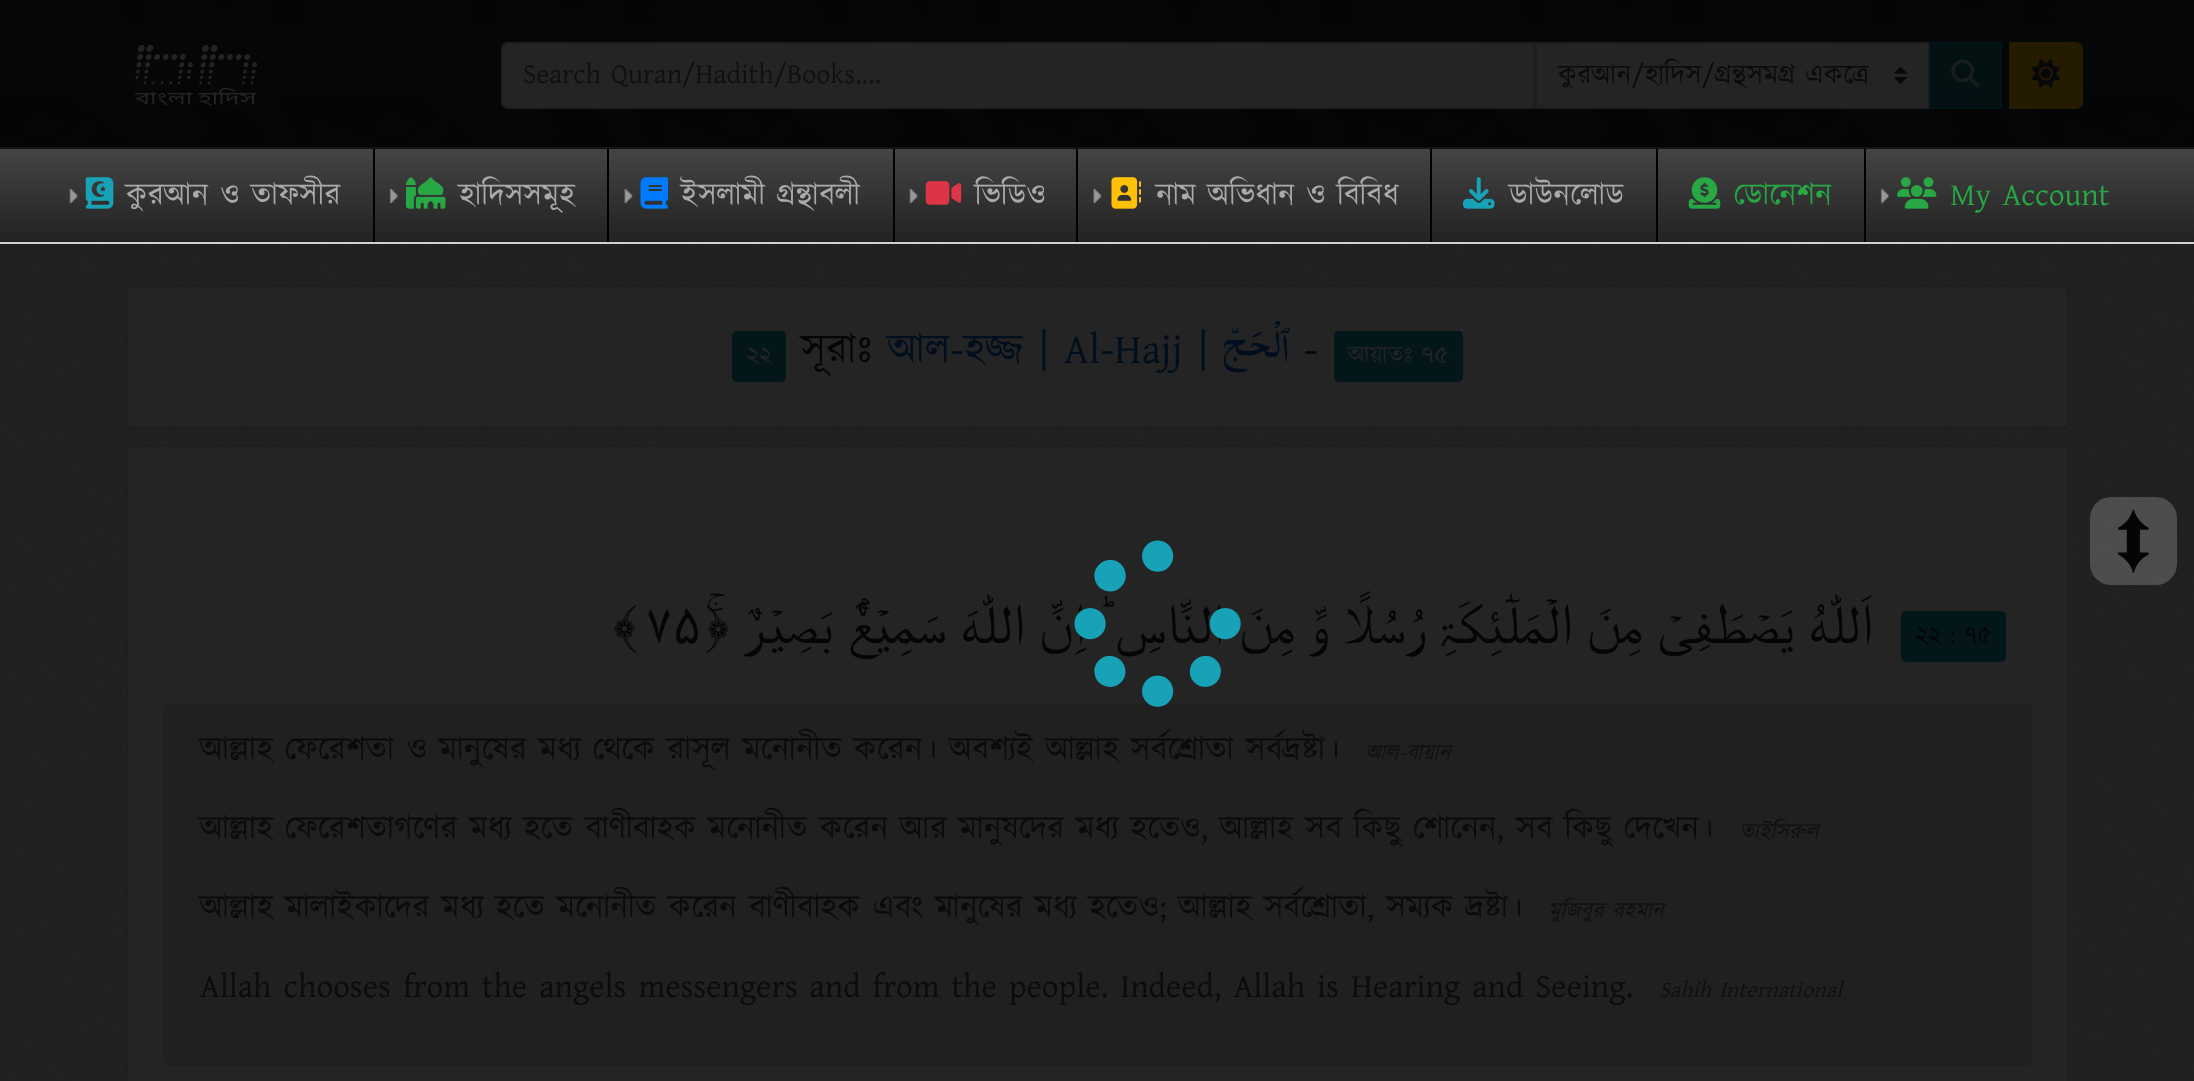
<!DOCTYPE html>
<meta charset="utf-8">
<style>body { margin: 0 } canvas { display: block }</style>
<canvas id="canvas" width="2194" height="1081"></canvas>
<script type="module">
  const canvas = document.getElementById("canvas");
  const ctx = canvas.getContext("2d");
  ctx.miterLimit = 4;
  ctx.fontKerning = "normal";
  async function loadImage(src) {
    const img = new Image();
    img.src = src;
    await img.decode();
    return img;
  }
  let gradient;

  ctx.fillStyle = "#ffffff";
  ctx.fillRect(0, 0, 2194, 1081);
  ctx.drawImage(await loadImage("img1.png"), 0, 90, 2194, 991);
  ctx.drawImage(await loadImage("img2.png"), 0, 0, 2194, 147);
  ctx.fillStyle = "#131313";
  ctx.fillRect(0, 147, 2194, 2);
  ctx.drawImage(await loadImage("img3.png"), 134, 45, 124, 61);
  ctx.fillStyle = "#242424";
  ctx.beginPath();
  ctx.roundRect(502, 43, 1032, 65, [6, 0, 0, 6]);
  ctx.fill();
  ctx.strokeStyle = "#1d1e1f";
  ctx.lineWidth = 2;
  ctx.stroke();
  ctx.font = "28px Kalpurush";
  ctx.fillStyle = "#0f1012";
  ctx.fillText("Search Quran/Hadith/Books....", 523, 83);
  ctx.fillStyle = "#242424";
  ctx.fillRect(1537, 44, 391, 63);
  ctx.save();
  ctx.beginPath();
  ctx.rect(1894, 67, 14, 17);
  ctx.clip();
  ctx.fillStyle = "#070809";
  ctx.beginPath();
  ctx.moveTo(1900.5, 66.5);
  ctx.lineTo(1893.5, 73.5);
  ctx.lineTo(1907.5, 73.5);
  ctx.closePath();
  ctx.moveTo(1900.5, 84);
  ctx.lineTo(1893.5, 77);
  ctx.lineTo(1907.5, 77);
  ctx.closePath();
  ctx.fill();
  ctx.restore();
  ctx.strokeRect(1536, 43, 393, 65);
  ctx.save();
  ctx.beginPath();
  ctx.rect(1558, 54, 322, 42);
  ctx.clip();
  ctx.fillStyle = "#0a0b0c";
  ctx.fillText("কুরআন/হাদিস/গ্রন্থসমগ্র একত্রে", 1558, 84);
  ctx.restore();
  ctx.fillStyle = "rgba(3, 23, 26, 0.65)";
  ctx.fillRect(1929, 42, 73, 67);
  ctx.strokeStyle = "rgba(3, 23, 26, 0.65)";
  ctx.strokeRect(1930, 43, 71, 65);
  ctx.drawImage(await loadImage("img4.png"), 1951, 59, 29, 29);
  ctx.fillStyle = "#241b01";
  ctx.beginPath();
  ctx.roundRect(2010, 43, 72, 65, [0, 6, 6, 0]);
  ctx.fill();
  ctx.strokeStyle = "#241b01";
  ctx.stroke();
  ctx.drawImage(await loadImage("img5.png"), 2031, 59, 29, 29);
  gradient = ctx.createLinearGradient(1097, 149, 1097, 242);
  gradient.addColorStop(0, "#444444");
  gradient.addColorStop(1, "#222222");
  ctx.fillStyle = gradient;
  ctx.fillRect(0, 149, 2194, 93);
  ctx.fillStyle = "#d0d0d0";
  ctx.fillRect(0, 242, 2194, 2);
  ctx.drawImage(await loadImage("img6.png"), 69, 189, 9, 14);
  ctx.drawImage(await loadImage("img7.png"), 85, 177, 29, 32);
  ctx.font = "31.5px Kalpurush";
  ctx.fillStyle = "#aaaaaa";
  ctx.fillText("কুরআন ও তাফসীর", 126, 205);
  ctx.drawImage(await loadImage("img8.png"), 389, 189, 9, 14);
  ctx.fillStyle = "#000000";
  ctx.fillRect(373, 149, 2, 93);
  ctx.drawImage(await loadImage("img9.png"), 406, 177, 40, 32);
  ctx.fillStyle = "#aaaaaa";
  ctx.fillText("হাদিসসমূহ", 459, 205);
  ctx.drawImage(await loadImage("img10.png"), 624, 189, 9, 14);
  ctx.fillStyle = "#000000";
  ctx.fillRect(607, 149, 2, 93);
  ctx.drawImage(await loadImage("img11.png"), 640, 177, 29, 32);
  ctx.fillStyle = "#aaaaaa";
  ctx.fillText("ইসলামী গ্রন্থাবলী", 681, 205);
  ctx.drawImage(await loadImage("img6.png"), 909, 189, 9, 14);
  ctx.fillStyle = "#000000";
  ctx.fillRect(893, 149, 2, 93);
  ctx.drawImage(await loadImage("img12.png"), 925, 181, 37, 24);
  ctx.fillStyle = "#aaaaaa";
  ctx.fillText("ভিডিও", 975, 205);
  ctx.drawImage(await loadImage("img10.png"), 1093, 189, 9, 14);
  ctx.fillStyle = "#000000";
  ctx.fillRect(1076, 149, 2, 93);
  ctx.drawImage(await loadImage("img13.png"), 1111, 177, 30, 32);
  ctx.fillStyle = "#aaaaaa";
  ctx.fillText("নাম অভিধান ও বিবিধ", 1156, 205);
  ctx.fillStyle = "#000000";
  ctx.fillRect(1430, 149, 2, 93);
  ctx.drawImage(await loadImage("img14.png"), 1463, 177, 32, 32);
  ctx.fillStyle = "#aaaaaa";
  ctx.fillText("ডাউনলোড", 1509, 205);
  ctx.fillStyle = "#000000";
  ctx.fillRect(1656, 149, 2, 93);
  ctx.drawImage(await loadImage("img15.png"), 1688, 177, 33, 32);
  ctx.fillStyle = "#28a745";
  ctx.fillText("ডোনেশন", 1734, 205);
  ctx.drawImage(await loadImage("img16.png"), 1880, 188, 9, 16);
  ctx.fillStyle = "#000000";
  ctx.fillRect(1864, 149, 2, 93);
  ctx.drawImage(await loadImage("img17.png"), 1897, 177, 40, 32);
  ctx.fillStyle = "#28a745";
  ctx.fillText("My Account", 1950, 205);
  ctx.fillStyle = "#242424";
  ctx.beginPath();
  ctx.roundRect(126, 285, 1943, 146, 7);
  ctx.fill();
  ctx.beginPath();
  ctx.roundRect(127, 286, 1941, 144, 6);
  ctx.strokeStyle = "rgba(0, 0, 0, 0.12)";
  ctx.stroke();
  ctx.fillStyle = "rgba(0, 0, 0, 0.12)";
  ctx.fillRect(128, 427, 1939, 2);
  ctx.fillStyle = "#03171a";
  ctx.beginPath();
  ctx.roundRect(732, 331, 54, 51, 5);
  ctx.fill();
  ctx.font = "24.5px Kalpurush";
  ctx.fillStyle = "#242424";
  ctx.fillText("২২", 746, 363);
  ctx.font = "42px Kalpurush";
  ctx.fillStyle = "#050505";
  ctx.fillText("সূরাঃ", 801, 363);
  ctx.fillStyle = "#000e1d";
  ctx.fillText("আল-হজ্জ | Al-Hajj |", 888, 363);
  ctx.drawImage(await loadImage("img18.png"), 1223, 321, 67, 52);
  ctx.fillStyle = "#050505";
  ctx.fillText("-", 1304, 363);
  ctx.fillStyle = "#03171a";
  ctx.beginPath();
  ctx.roundRect(1334, 331, 129, 51, 5);
  ctx.fill();
  ctx.font = "24.5px Kalpurush";
  ctx.fillStyle = "#242424";
  ctx.fillText("আয়াতঃ ৭৫", 1348, 363);
  ctx.beginPath();
  ctx.roundRect(126, 445, 1943, 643, 7);
  ctx.fill();
  ctx.beginPath();
  ctx.roundRect(127, 446, 1941, 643, 6);
  ctx.stroke();
  ctx.font = "56px FreeSerif";
  ctx.fillStyle = "#050505";
  ctx.fillText("﴾", 613, 643);
  ctx.fillText("۷۵", 645, 643);
  ctx.direction = "rtl";
  ctx.fillText("بَصِیۡرٌ ﴿ۚ", 833, 643);
  ctx.fillText("رُسُلًا وَّ مِنَ النَّاسِ ؕ اِنَّ اللّٰهَ سَمِیۡعٌۢ", 1424, 643);
  ctx.fillText("اَللّٰهُ یَصۡطَفِیۡ مِنَ الۡمَلٰٓئِكَۃِ", 1873, 643);
  ctx.fillStyle = "#03171a";
  ctx.beginPath();
  ctx.roundRect(1901, 611, 105, 51, 5);
  ctx.fill();
  ctx.direction = "ltr";
  ctx.font = "24.5px Kalpurush";
  ctx.fillStyle = "#050505";
  ctx.fillText("২২ : ৭৫", 1915, 643);
  ctx.fillStyle = "#202020";
  ctx.beginPath();
  ctx.roundRect(163, 704, 1869, 362, 7);
  ctx.fill();
  ctx.font = "33.25px Kalpurush";
  ctx.fillStyle = "#0a0b0c";
  ctx.fillText("আল্লাহ ফেরেশতা ও মানুষের মধ্য থেকে রাসূল মনোনীত করেন। অবশ্যই আল্লাহ সর্বশ্রোতা সর্বদ্রষ্টা।", 200, 760);
  ctx.font = "italic 22.5px Kalpurush";
  ctx.fillStyle = "#0f1012";
  ctx.fillText("আল-বায়ান", 1365, 760);
  ctx.font = "33.25px Kalpurush";
  ctx.fillStyle = "#0a0b0c";
  ctx.fillText("আল্লাহ ফেরেশতাগণের মধ্য হতে বাণীবাহক মনোনীত করেন আর মানুষদের মধ্য হতেও, আল্লাহ সব কিছু শোনেন, সব কিছু দেখেন।", 200, 839);
  ctx.font = "italic 22.5px Kalpurush";
  ctx.fillStyle = "#0f1012";
  ctx.fillText("তাইসিরুল", 1739, 839);
  ctx.font = "33.25px Kalpurush";
  ctx.fillStyle = "#0a0b0c";
  ctx.fillText("আল্লাহ মালাইকাদের মধ্য হতে মনোনীত করেন বাণীবাহক এবং মানুষের মধ্য হতেও; আল্লাহ সর্বশ্রোতা, সম্যক দ্রষ্টা।", 200, 918);
  ctx.font = "italic 22.5px Kalpurush";
  ctx.fillStyle = "#0f1012";
  ctx.fillText("মুজিবুর রহমান", 1548, 918);
  ctx.font = "33.25px Kalpurush";
  ctx.fillStyle = "#0a0b0c";
  ctx.fillText("Allah chooses from the angels messengers and from the people. Indeed, Allah is Hearing and Seeing.", 200, 997);
  ctx.font = "italic 22.5px Kalpurush";
  ctx.fillStyle = "#0f1012";
  ctx.fillText("Sahih International", 1659, 997);
  ctx.fillStyle = "rgba(255, 255, 255, 0.2)";
  ctx.beginPath();
  ctx.roundRect(2090, 497, 87, 88, 21);
  ctx.fill();
  ctx.font = "56px FreeSans";
  ctx.fillStyle = "#050505";
  ctx.fillText("⬍", 2116, 557);
  ctx.drawImage(await loadImage("img19.png"), 1074, 540, 167, 167);
</script>
